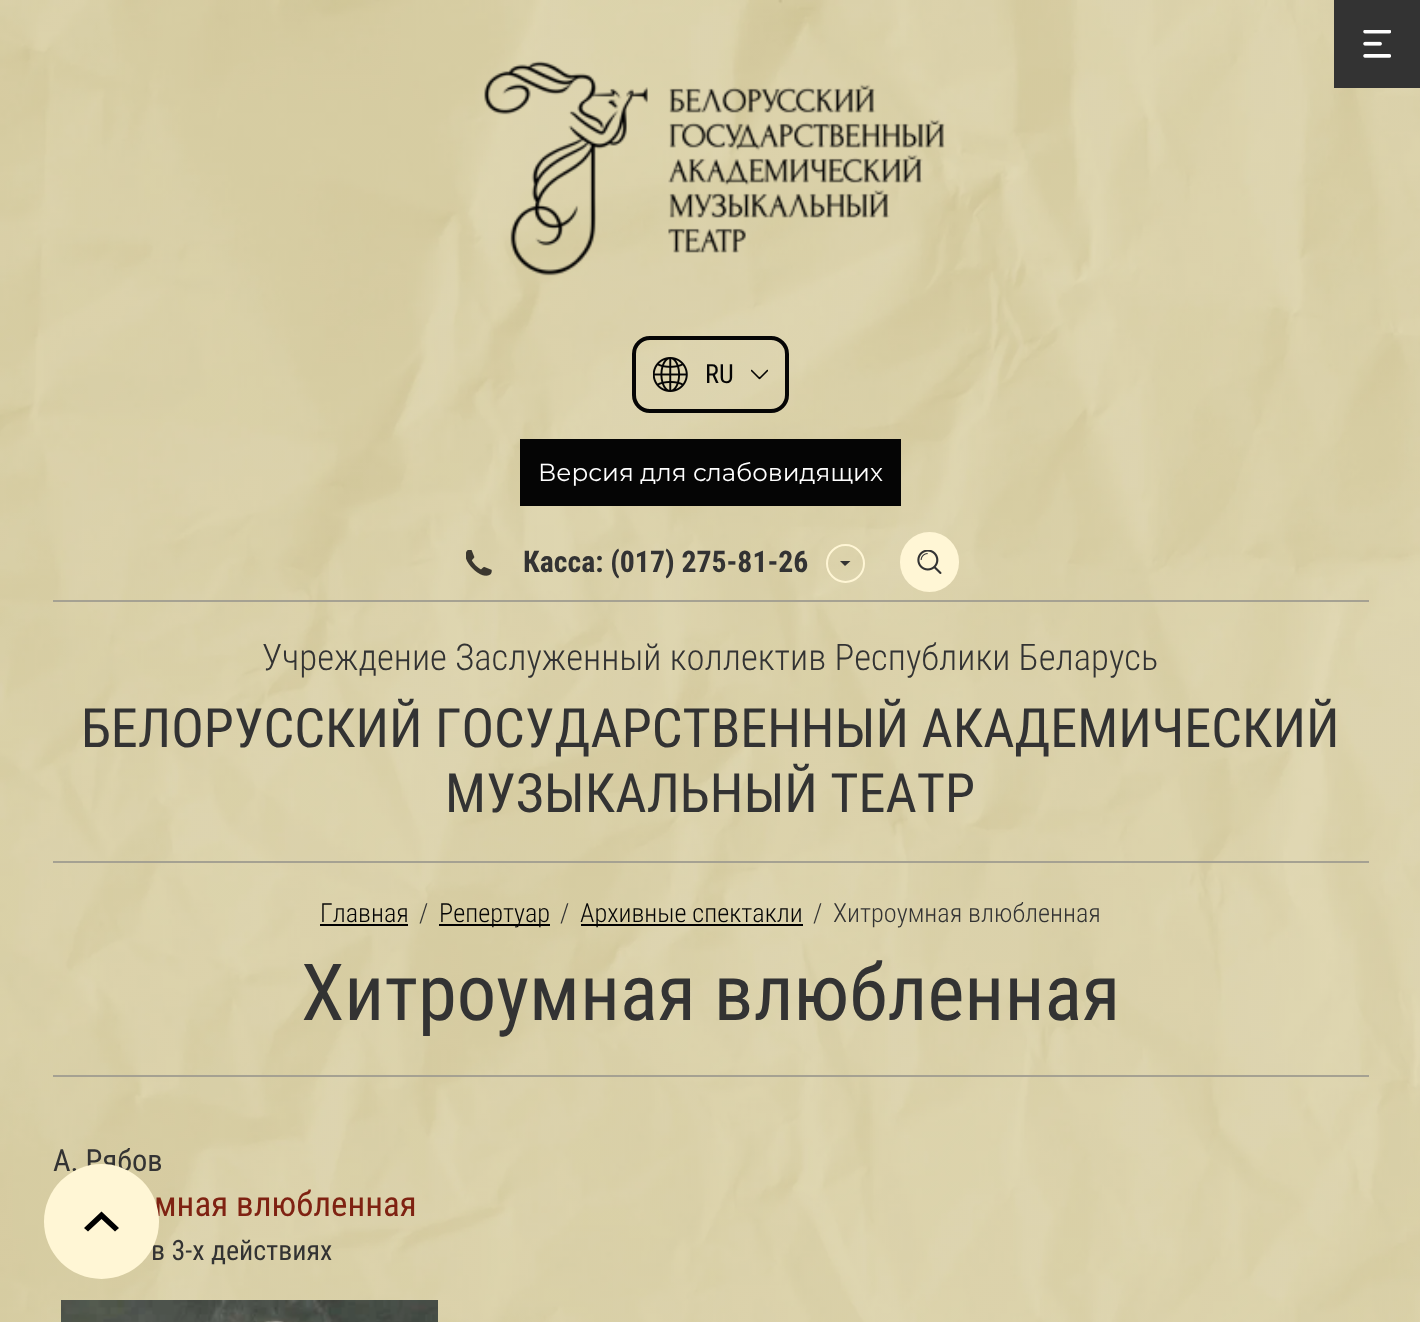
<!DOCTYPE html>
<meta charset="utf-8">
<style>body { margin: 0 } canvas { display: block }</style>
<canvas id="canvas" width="1420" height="1322"></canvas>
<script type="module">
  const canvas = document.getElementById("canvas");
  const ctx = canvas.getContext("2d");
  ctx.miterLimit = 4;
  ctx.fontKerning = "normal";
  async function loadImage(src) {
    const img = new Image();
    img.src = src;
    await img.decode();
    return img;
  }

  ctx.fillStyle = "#ffffff";
  ctx.fillRect(0, 0, 1420, 1322);
  ctx.drawImage(await loadImage("img1.png"), 0, 0, 1420, 1322);
  ctx.fillStyle = "#333333";
  ctx.fillRect(1334, 0, 86, 88);
  ctx.drawImage(await loadImage("img2.png"), 1363, 30, 28, 28);
  ctx.drawImage(await loadImage("img3.png"), 484, 61, 461, 215);
  ctx.beginPath();
  ctx.roundRect(634, 338, 153, 73, 16);
  ctx.strokeStyle = "#050505";
  ctx.lineWidth = 4;
  ctx.stroke();
  ctx.drawImage(await loadImage("img4.png"), 653, 357, 35, 35);
  ctx.font = "26.25px Roboto Condensed";
  ctx.fillStyle = "#050505";
  ctx.fillText("RU", 705, 383);
  ctx.drawImage(await loadImage("img5.png"), 751, 369, 17, 11);
  ctx.fillRect(520, 439, 381, 67);
  ctx.font = "24.5px Montserrat";
  ctx.fillStyle = "#ffffff";
  ctx.fillText("Версия для слабовидящих", 538, 481);
  ctx.drawImage(await loadImage("img6.png"), 466, 550, 26, 26);
  ctx.font = "bold 29.75px Roboto Condensed";
  ctx.fillStyle = "#333333";
  ctx.fillText("Касса: (017) 275-81-26", 523, 572);
  ctx.beginPath();
  ctx.arc(845.5, 563.5, 18.5, 0, Math.PI * 2);
  ctx.strokeStyle = "#fff6d5";
  ctx.lineWidth = 2;
  ctx.stroke();
  ctx.beginPath();
  ctx.moveTo(850.5, 561);
  ctx.lineTo(845, 566);
  ctx.lineTo(840, 561);
  ctx.closePath();
  ctx.fill("evenodd");
  ctx.fillStyle = "#fff6d5";
  ctx.beginPath();
  ctx.roundRect(900, 532, 59, 60, 29.5);
  ctx.fill();
  ctx.drawImage(await loadImage("img7.png"), 917, 550, 25, 24);
  ctx.fillStyle = "#a5a192";
  ctx.fillRect(53, 600, 1316, 2);
  ctx.fillRect(53, 861, 1316, 2);
  ctx.font = "300 36.75px Roboto Condensed";
  ctx.fillStyle = "#333333";
  ctx.fillText("Учреждение Заслуженный коллектив Республики Беларусь", 262, 670);
  ctx.font = "54.25px Roboto Condensed";
  ctx.fillText("БЕЛОРУССКИЙ ГОСУДАРСТВЕННЫЙ АКАДЕМИЧЕСКИЙ", 81, 747);
  ctx.fillText("МУЗЫКАЛЬНЫЙ ТЕАТР", 445, 812);
  ctx.fillStyle = "#a5a192";
  ctx.fillRect(53, 1075, 1316, 2);
  ctx.font = "300 26.25px Roboto Condensed";
  ctx.fillStyle = "#050505";
  ctx.fillText("Главная", 320, 922);
  ctx.fillStyle = "#000000";
  ctx.fillRect(320, 924, 88, 2);
  ctx.fillStyle = "#333333";
  ctx.fillText("/", 419, 922);
  ctx.fillStyle = "#000000";
  ctx.fillRect(439, 924, 111, 2);
  ctx.fillStyle = "#050505";
  ctx.fillText("Репертуар", 439, 922);
  ctx.fillStyle = "#333333";
  ctx.fillText("/", 560, 922);
  ctx.fillStyle = "#000000";
  ctx.fillRect(581, 924, 222, 2);
  ctx.fillStyle = "#050505";
  ctx.fillText("Архивные спектакли", 580, 922);
  ctx.fillStyle = "#333333";
  ctx.fillText("/", 813, 922);
  ctx.fillText("Хитроумная влюбленная", 833, 922);
  ctx.font = "78.75px Roboto Condensed";
  ctx.fillText("Хитроумная влюбленная", 301, 1020);
  ctx.font = "30.5px Roboto Condensed";
  ctx.fillText("А. Рябов", 53, 1171);
  ctx.font = "35px Roboto Condensed";
  ctx.fillStyle = "#7f2212";
  ctx.fillText("мная влюбленная", 154, 1216);
  ctx.font = "28px Roboto Condensed";
  ctx.fillStyle = "#333333";
  ctx.fillText("в 3-х действиях", 151, 1260);
  ctx.drawImage(await loadImage("img8.png"), 61, 1300, 377, 22);
  ctx.fillStyle = "#fff6d5";
  ctx.beginPath();
  ctx.arc(101.5, 1221.5, 57.5, 0, Math.PI * 2);
  ctx.fill();
  ctx.fillStyle = "#000000";
  ctx.beginPath();
  ctx.moveTo(84, 1228);
  ctx.lineTo(101.5, 1211.5);
  ctx.lineTo(119, 1228);
  ctx.lineTo(115, 1231.5);
  ctx.lineTo(101.5, 1219);
  ctx.lineTo(88, 1231.5);
  ctx.closePath();
  ctx.fill("evenodd");
</script>
